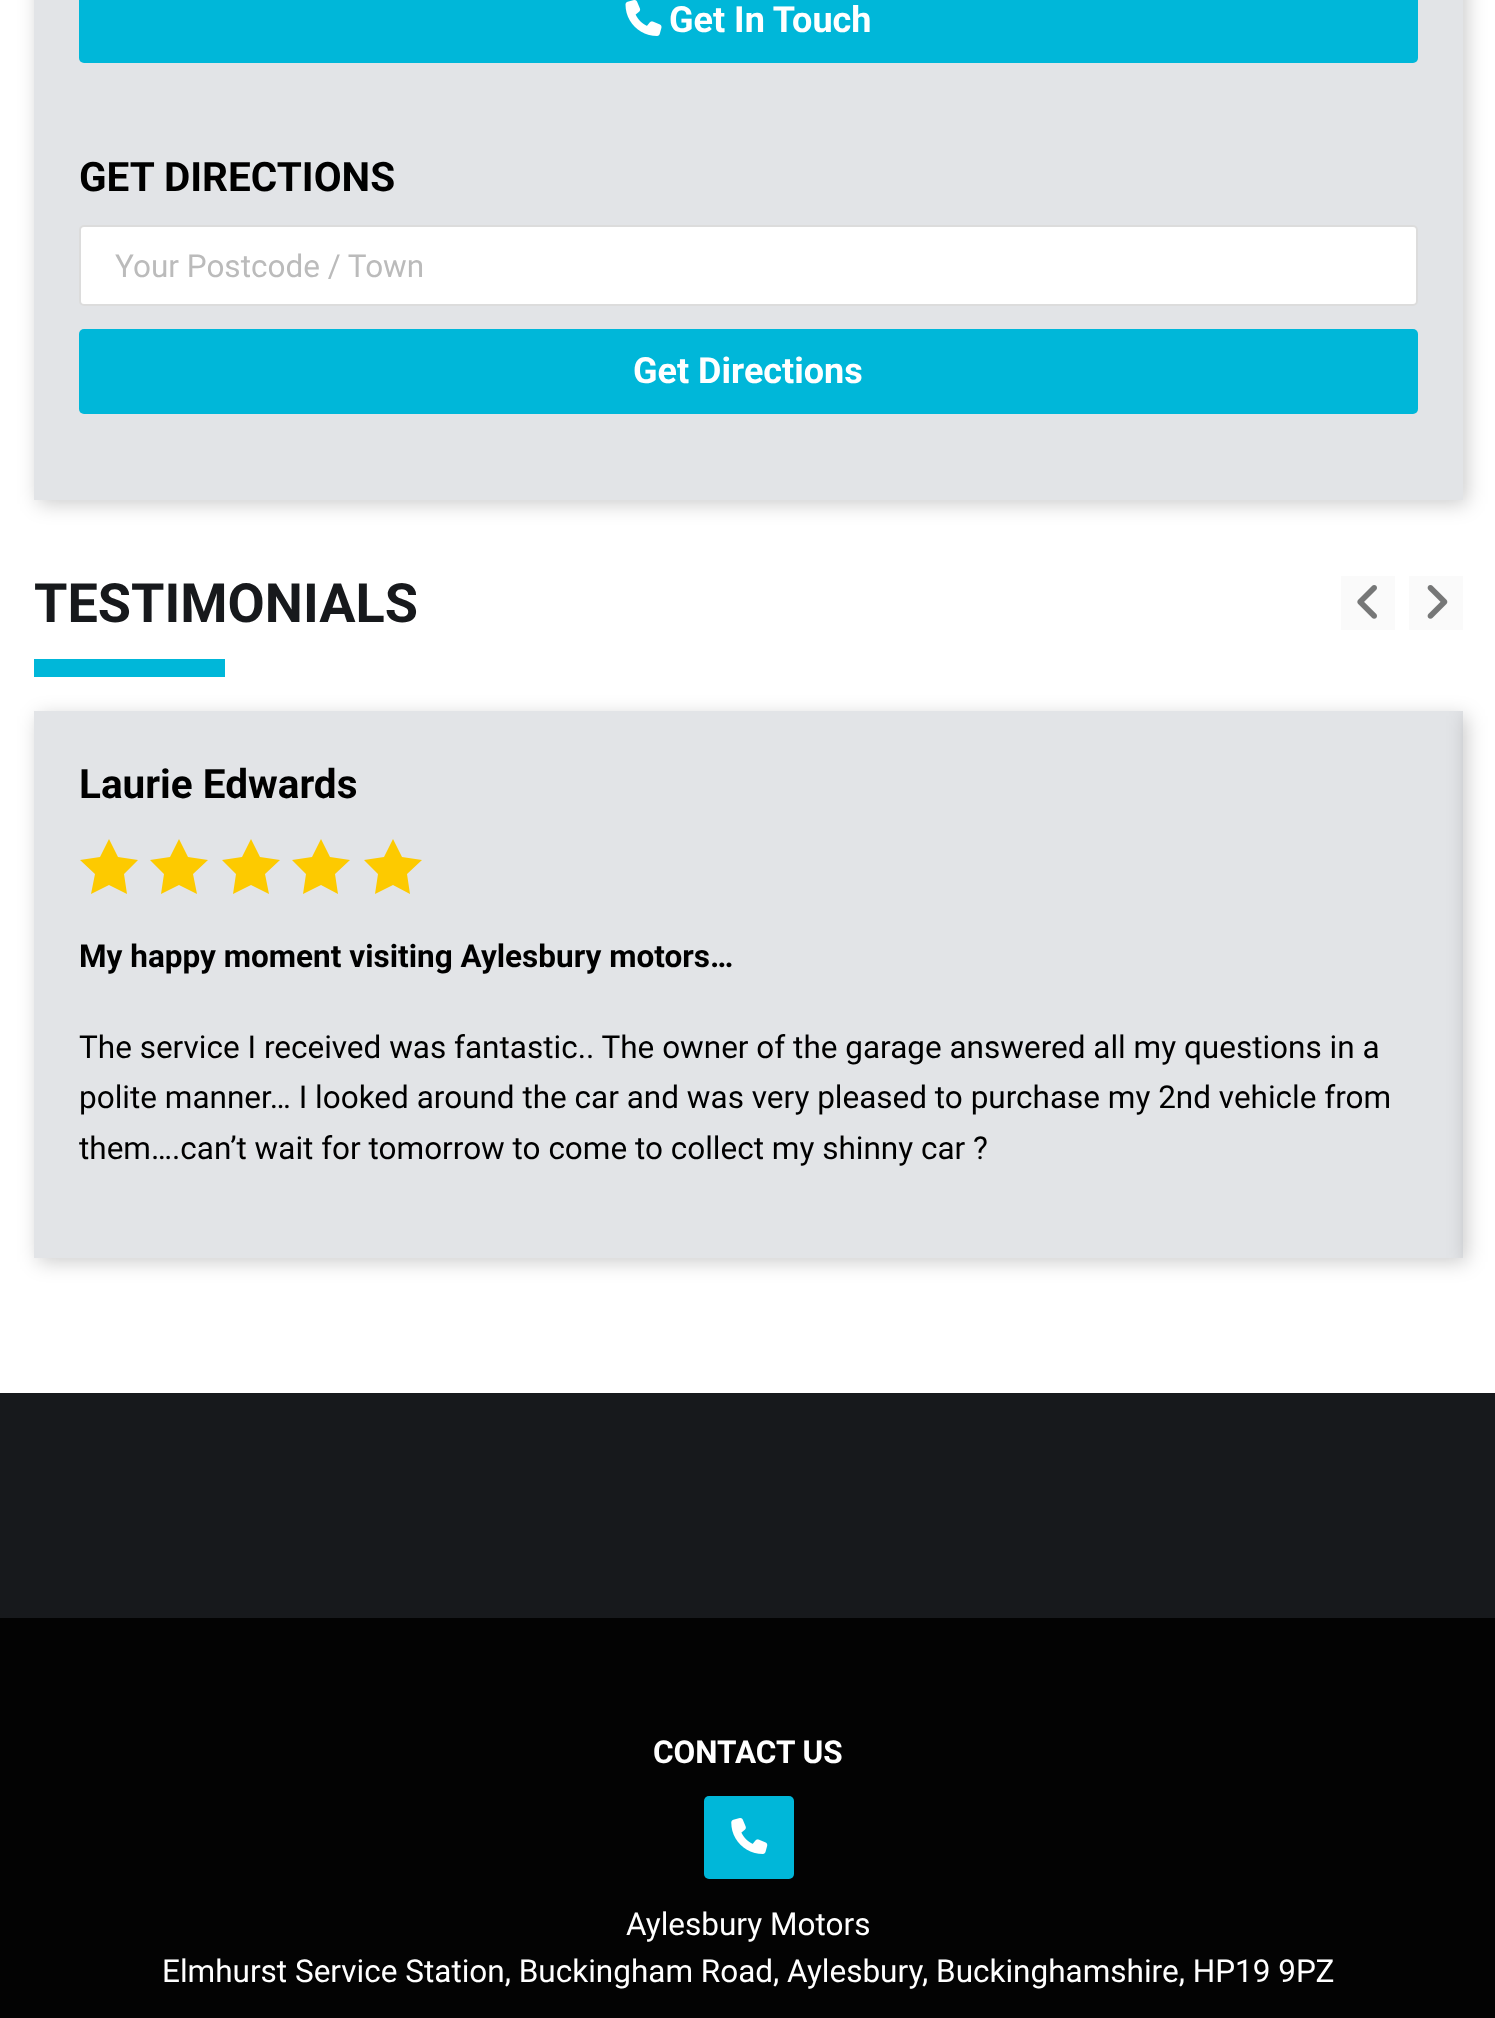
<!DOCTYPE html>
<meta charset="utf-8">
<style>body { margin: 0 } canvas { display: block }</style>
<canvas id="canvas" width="1495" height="2018"></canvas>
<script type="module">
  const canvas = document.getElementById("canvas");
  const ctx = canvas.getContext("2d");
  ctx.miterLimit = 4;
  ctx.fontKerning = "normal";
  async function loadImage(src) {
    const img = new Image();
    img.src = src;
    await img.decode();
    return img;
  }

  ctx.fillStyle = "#ffffff";
  ctx.fillRect(0, 0, 1495, 2018);
  ctx.fillStyle = "rgba(0, 0, 0, 0.2)";
  ctx.filter = "blur(10px)";
  ctx.beginPath();
  ctx.rect(38, -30, 1429, 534);
  ctx.fill();
  ctx.filter = "none";
  ctx.fillStyle = "#e2e4e7";
  ctx.fillRect(34, 0, 1429, 500);
  ctx.fillStyle = "#00b7d9";
  ctx.beginPath();
  ctx.roundRect(79, -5, 1339, 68, 5);
  ctx.fill();
  ctx.drawImage(await loadImage("img1.png"), 625, 0, 37, 36);
  ctx.font = "bold 36px Roboto";
  ctx.fillStyle = "#ffffff";
  ctx.fillText("Get In Touch", 669, 32);
  ctx.font = "bold 40.5px Roboto";
  ctx.fillStyle = "#000000";
  ctx.fillText("GET DIRECTIONS", 79, 191);
  ctx.fillStyle = "#ffffff";
  ctx.beginPath();
  ctx.roundRect(80, 226, 1337, 79, 4);
  ctx.fill();
  ctx.strokeStyle = "#dcdcdc";
  ctx.lineWidth = 2;
  ctx.stroke();
  ctx.font = "31.5px Roboto";
  ctx.fillStyle = "#bbbbbb";
  ctx.fillText("Your Postcode / Town", 115, 277);
  ctx.fillStyle = "#00b7d9";
  ctx.beginPath();
  ctx.roundRect(79, 329, 1339, 85, 5);
  ctx.fill();
  ctx.font = "bold 36px Roboto";
  ctx.fillStyle = "#ffffff";
  ctx.fillText("Get Directions", 633, 383);
  ctx.font = "bold 54px Roboto";
  ctx.fillStyle = "#17191c";
  ctx.fillText("TESTIMONIALS", 34, 622);
  ctx.fillStyle = "#00b7d9";
  ctx.fillRect(34, 659, 191, 18);
  ctx.fillStyle = "rgba(0, 0, 0, 0.2)";
  ctx.filter = "blur(10px)";
  ctx.beginPath();
  ctx.rect(38, 716, 1429, 546);
  ctx.fill();
  ctx.filter = "none";
  ctx.fillStyle = "#fafafa";
  ctx.fillRect(1341, 576, 54, 54);
  ctx.drawImage(await loadImage("img2.png"), 1357, 585, 20, 34);
  ctx.fillRect(1409, 576, 54, 54);
  ctx.drawImage(await loadImage("img3.png"), 1427, 585, 21, 34);
  ctx.fillStyle = "#e2e4e7";
  ctx.fillRect(34, 711, 1429, 547);
  ctx.font = "bold 40.5px Roboto";
  ctx.fillStyle = "#000000";
  ctx.fillText("Laurie Edwards", 79, 798);
  ctx.fillStyle = "#fdca00";
  ctx.beginPath();
  ctx.moveTo(109, 885);
  ctx.lineTo(91, 894);
  ctx.lineTo(95, 874);
  ctx.lineTo(80, 860);
  ctx.lineTo(100, 857);
  ctx.lineTo(109, 839);
  ctx.lineTo(118, 857);
  ctx.lineTo(138, 860);
  ctx.lineTo(124, 874);
  ctx.lineTo(127, 894);
  ctx.closePath();
  ctx.fill("evenodd");
  ctx.beginPath();
  ctx.moveTo(179, 885);
  ctx.lineTo(161, 894);
  ctx.lineTo(164, 874);
  ctx.lineTo(150, 860);
  ctx.lineTo(170, 857);
  ctx.lineTo(179, 839);
  ctx.lineTo(188, 857);
  ctx.lineTo(208, 860);
  ctx.lineTo(193, 874);
  ctx.lineTo(197, 894);
  ctx.closePath();
  ctx.fill("evenodd");
  ctx.beginPath();
  ctx.moveTo(251, 885);
  ctx.lineTo(233, 894);
  ctx.lineTo(236, 874);
  ctx.lineTo(222, 860);
  ctx.lineTo(242, 857);
  ctx.lineTo(251, 839);
  ctx.lineTo(260, 857);
  ctx.lineTo(280, 860);
  ctx.lineTo(265, 874);
  ctx.lineTo(269, 894);
  ctx.closePath();
  ctx.fill("evenodd");
  ctx.beginPath();
  ctx.moveTo(321, 885);
  ctx.lineTo(303, 894);
  ctx.lineTo(306, 874);
  ctx.lineTo(292, 860);
  ctx.lineTo(312, 857);
  ctx.lineTo(321, 839);
  ctx.lineTo(330, 857);
  ctx.lineTo(350, 860);
  ctx.lineTo(335, 874);
  ctx.lineTo(338, 894);
  ctx.closePath();
  ctx.fill("evenodd");
  ctx.beginPath();
  ctx.moveTo(393, 885);
  ctx.lineTo(375, 894);
  ctx.lineTo(378, 874);
  ctx.lineTo(364, 860);
  ctx.lineTo(384, 857);
  ctx.lineTo(393, 839);
  ctx.lineTo(402, 857);
  ctx.lineTo(422, 860);
  ctx.lineTo(407, 874);
  ctx.lineTo(410, 894);
  ctx.closePath();
  ctx.fill("evenodd");
  ctx.font = "bold 31.5px Roboto";
  ctx.fillStyle = "#000000";
  ctx.fillText("My happy moment visiting Aylesbury motors…", 79, 967);
  ctx.font = "31.5px Roboto";
  ctx.fillText("The service I received was fantastic.. The owner of the garage answered all my questions in a", 79, 1058);
  ctx.fillText("polite manner… I looked around the car and was very pleased to purchase my 2nd vehicle from", 79, 1108);
  ctx.fillText("them….can’t wait for tomorrow to come to collect my shinny car ?", 79, 1159);
  ctx.save();
  ctx.beginPath();
  ctx.rect(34, 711, 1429, 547);
  ctx.clip();
  ctx.fillStyle = "rgba(0, 0, 0, 0.2)";
  ctx.filter = "blur(10px)";
  ctx.beginPath();
  ctx.rect(1467, 716, 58, 546);
  ctx.fill();
  ctx.filter = "none";
  ctx.restore();
  ctx.fillStyle = "#17191c";
  ctx.fillRect(0, 1393, 1495, 225);
  ctx.fillStyle = "#030303";
  ctx.fillRect(0, 1618, 1495, 400);
  ctx.font = "bold 31.5px Roboto";
  ctx.fillStyle = "#ffffff";
  ctx.fillText("CONTACT US", 653, 1763);
  ctx.fillStyle = "#00b7d9";
  ctx.beginPath();
  ctx.roundRect(704, 1796, 90, 83, 5);
  ctx.fill();
  ctx.drawImage(await loadImage("img4.png"), 731, 1818, 37, 36);
  ctx.font = "31.5px Roboto";
  ctx.fillStyle = "#ffffff";
  ctx.fillText("Aylesbury Motors", 626, 1935);
  ctx.fillText("Elmhurst Service Station, Buckingham Road, Aylesbury", 162, 1982);
  ctx.fillText(", Buckinghamshire, HP19 9PZ", 922, 1982);
</script>
